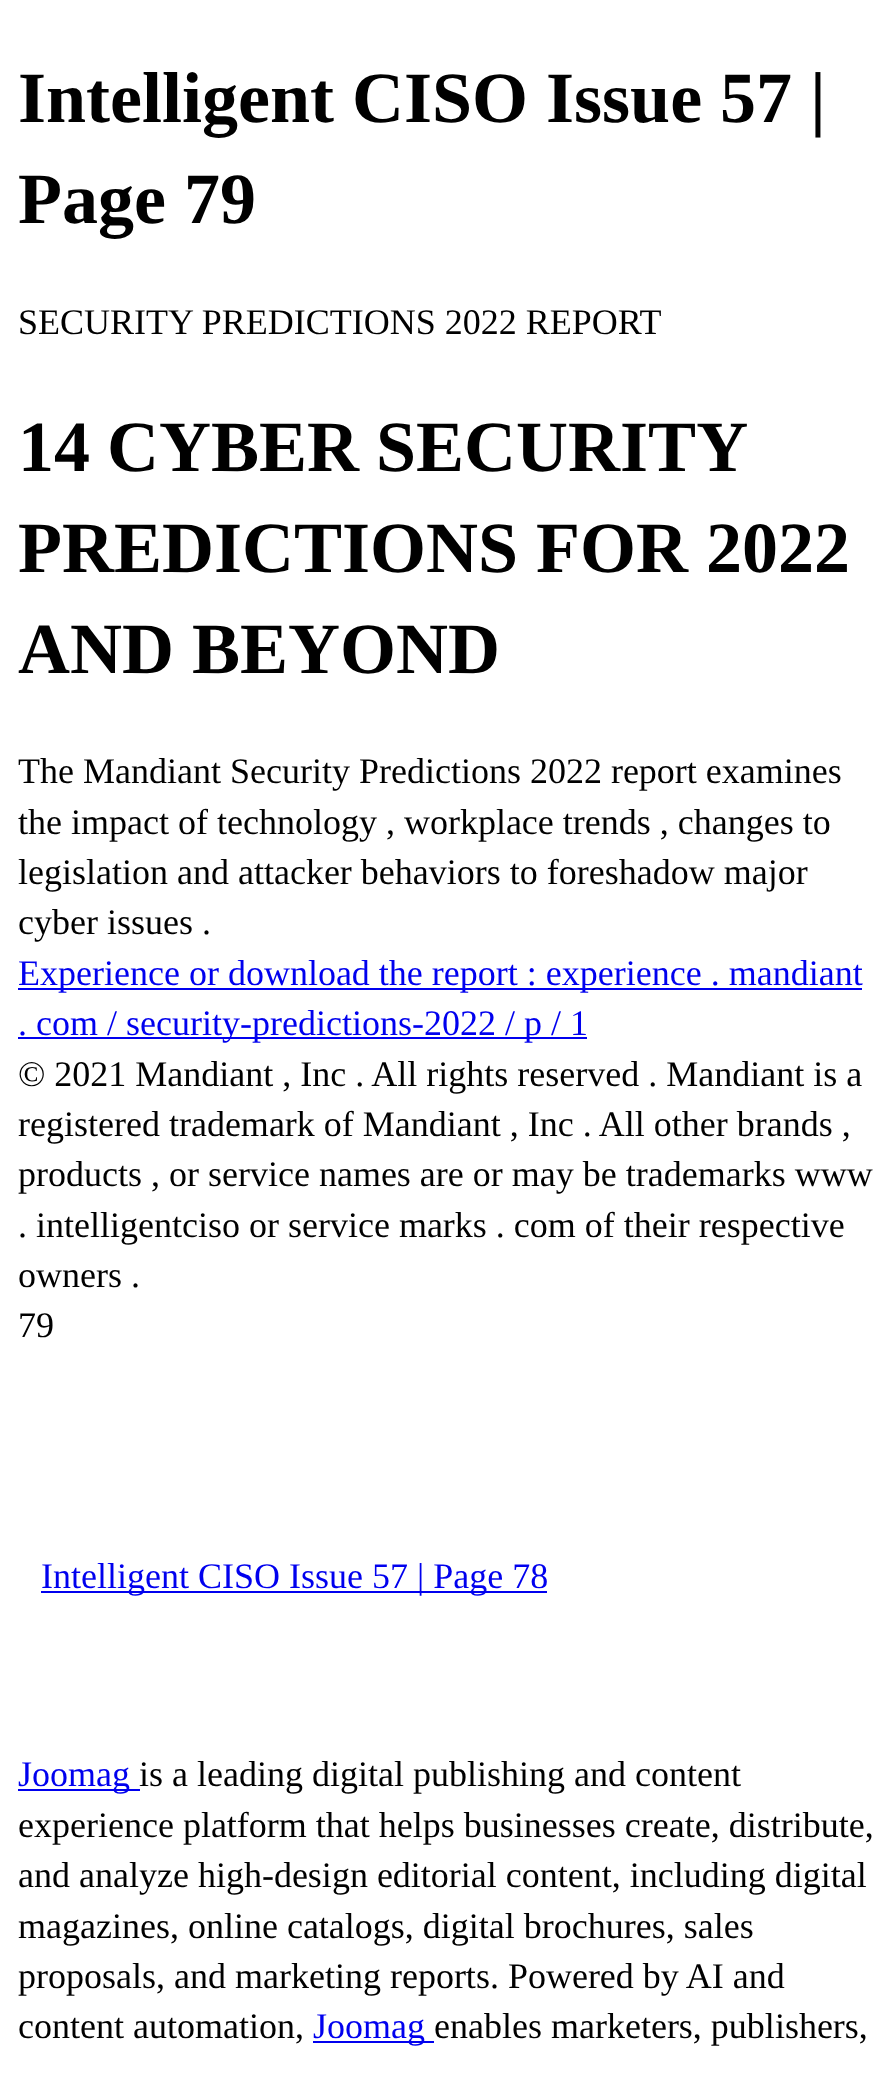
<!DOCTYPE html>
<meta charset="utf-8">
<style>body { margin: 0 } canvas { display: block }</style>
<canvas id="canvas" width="893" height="2074"></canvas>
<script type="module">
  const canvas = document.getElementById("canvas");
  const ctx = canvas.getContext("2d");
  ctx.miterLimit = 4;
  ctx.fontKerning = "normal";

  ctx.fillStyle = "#ffffff";
  ctx.fillRect(0, 0, 893, 2074);
  ctx.font = "bold 72px Liberation Serif";
  ctx.fillStyle = "#000000";
  ctx.fillText("Intelligent CISO Issue 57 |", 18, 122);
  ctx.fillText("Page 79", 18, 223);
  ctx.font = "36px Liberation Serif";
  ctx.fillText("SECURITY PREDICTIONS 2022 REPORT", 18, 334);
  ctx.wordSpacing = "-1px";
  ctx.font = "bold 72px Liberation Serif";
  ctx.fillText("14 CYBER SECURITY", 18, 471);
  ctx.wordSpacing = "0px";
  ctx.fillText("PREDICTIONS FOR 2022", 18, 572);
  ctx.fillText("AND BEYOND", 18, 673);
  ctx.font = "36px Liberation Serif";
  ctx.fillText("The Mandiant Security Predictions 2022 report examines", 18, 783);
  ctx.fillText("the impact of technology , workplace trends , changes to", 18, 834);
  ctx.fillText("legislation and attacker behaviors to foreshadow major", 18, 884);
  ctx.fillText("cyber issues .", 18, 934);
  ctx.fillStyle = "#0000ee";
  ctx.fillRect(18, 988, 844, 2);
  ctx.fillText("Experience or download the report : experience . mandiant", 18, 985);
  ctx.fillRect(18, 1037, 569, 2);
  ctx.fillText(". com / security-predictions-2022 / p / 1", 18, 1035);
  ctx.fillStyle = "#000000";
  ctx.fillText("© 2021 Mandiant , Inc . All rights reserved . Mandiant is a", 18, 1086);
  ctx.fillText("registered trademark of Mandiant , Inc . All other brands ,", 18, 1136);
  ctx.fillText("products , or service names are or may be trademarks www", 18, 1186);
  ctx.fillText(". intelligentciso or service marks . com of their respective", 18, 1237);
  ctx.fillText("owners .", 18, 1287);
  ctx.fillText("79", 18, 1337);
  ctx.fillStyle = "#0000ee";
  ctx.fillRect(41, 1591, 506, 2);
  ctx.fillText("Intelligent CISO Issue 57 | Page 78", 41, 1588);
  ctx.fillRect(18, 1789, 122, 2);
  ctx.fillText("Joomag", 18, 1786);
  ctx.fillStyle = "#000000";
  ctx.fillText("is a leading digital publishing and content", 139, 1786);
  ctx.fillText("experience platform that helps businesses create, distribute,", 18, 1837);
  ctx.fillText("and analyze high-design editorial content, including digital", 18, 1887);
  ctx.fillText("magazines, online catalogs, digital brochures, sales", 18, 1938);
  ctx.fillText("proposals, and marketing reports. Powered by AI and", 18, 1988);
  ctx.fillText("content automation,", 18, 2038);
  ctx.fillStyle = "#0000ee";
  ctx.fillRect(313, 2041, 121, 2);
  ctx.fillText("Joomag", 313, 2038);
  ctx.fillStyle = "#000000";
  ctx.fillText("enables marketers, publishers,", 434, 2038);
</script>
